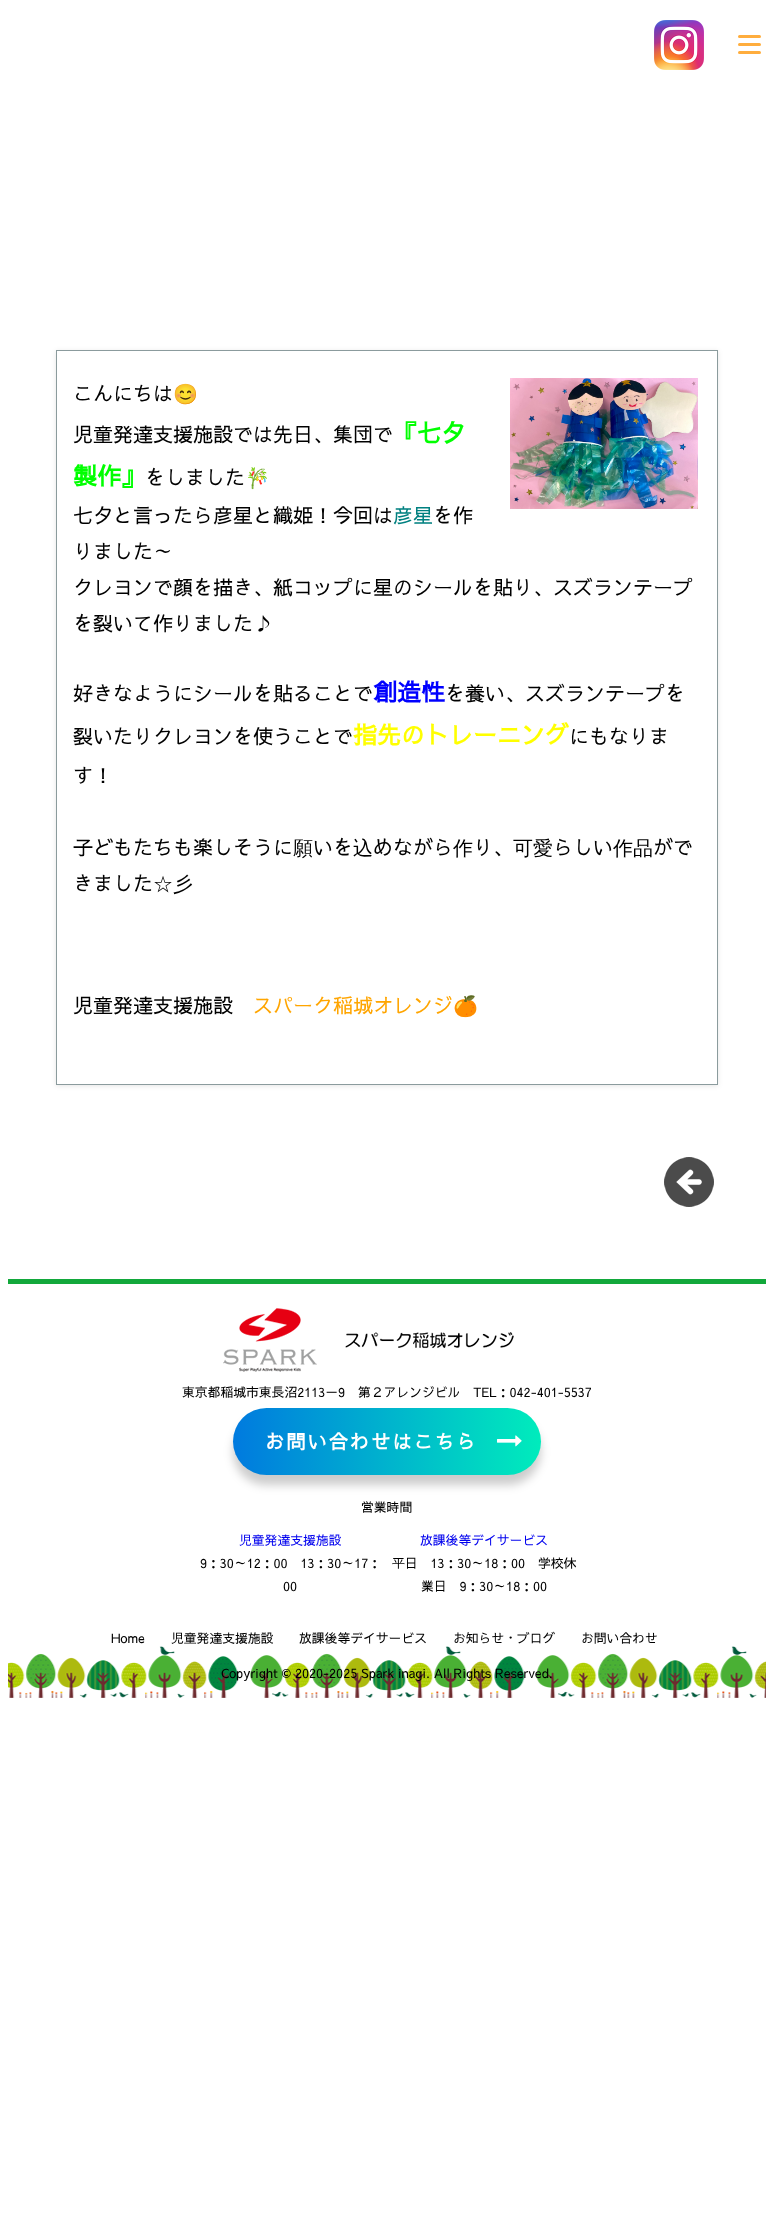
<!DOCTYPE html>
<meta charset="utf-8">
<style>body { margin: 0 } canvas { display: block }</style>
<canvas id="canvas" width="774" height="2227"></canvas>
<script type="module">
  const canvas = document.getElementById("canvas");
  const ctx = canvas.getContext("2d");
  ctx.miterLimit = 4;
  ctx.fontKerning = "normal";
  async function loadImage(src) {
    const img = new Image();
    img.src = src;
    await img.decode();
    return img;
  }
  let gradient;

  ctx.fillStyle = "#ffffff";
  ctx.fillRect(0, 0, 774, 2227);
  ctx.drawImage(await loadImage("img1.png"), 654, 20, 50, 50);
  ctx.fillStyle = "#ffad3d";
  ctx.beginPath();
  ctx.roundRect(738, 35, 23, 3, 1.5);
  ctx.fill();
  ctx.beginPath();
  ctx.roundRect(738, 43, 23, 3, 1.5);
  ctx.fill();
  ctx.beginPath();
  ctx.roundRect(738, 51, 23, 3, 1.5);
  ctx.fill();
  ctx.save();
  ctx.beginPath();
  ctx.moveTo(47, 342);
  ctx.lineTo(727, 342);
  ctx.lineTo(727, 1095);
  ctx.lineTo(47, 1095);
  ctx.closePath();
  ctx.moveTo(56, 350);
  ctx.lineTo(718, 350);
  ctx.lineTo(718, 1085);
  ctx.lineTo(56, 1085);
  ctx.closePath();
  ctx.clip("evenodd");
  ctx.fillStyle = "rgba(0, 0, 0, 0.1)";
  ctx.filter = "blur(2.5px)";
  ctx.beginPath();
  ctx.rect(56, 351, 662, 735);
  ctx.fill();
  ctx.filter = "none";
  ctx.restore();
  ctx.strokeStyle = "#8b9b9d";
  ctx.strokeRect(56.5, 350.5, 661, 734);
  ctx.font = "20px Sawarabi Gothic";
  ctx.fillStyle = "#000000";
  ctx.fillText("こんにちは", 73, 401);
  ctx.font = "20px Noto Color Emoji";
  ctx.fillText("😊", 173, 401);
  ctx.drawImage(await loadImage("img2.png"), 510, 378, 188, 131);
  ctx.font = "20px Sawarabi Gothic";
  ctx.fillText("児童発達支援施設では先日、集団で", 73, 442);
  ctx.font = "bold 24px Sawarabi Gothic";
  ctx.fillStyle = "#00ff00";
  ctx.fillText("『七夕", 393, 442);
  ctx.fillText("製作』", 73, 485);
  ctx.font = "20px Sawarabi Gothic";
  ctx.fillStyle = "#000000";
  ctx.fillText("をしました", 145, 485);
  ctx.font = "20px Noto Color Emoji";
  ctx.fillText("🎋", 245, 485);
  ctx.font = "20px Sawarabi Gothic";
  ctx.fillText("七夕と言ったら彦星と織姫！今回は", 73, 523);
  ctx.fillStyle = "#008080";
  ctx.fillText("彦星", 393, 523);
  ctx.fillStyle = "#000000";
  ctx.fillText("を作", 433, 523);
  ctx.fillText("りました～", 73, 559);
  ctx.fillText("クレヨンで顔を描き、紙コップに星のシールを貼り、スズランテープ", 73, 595);
  ctx.fillText("を裂いて作りました♪", 73, 631);
  ctx.fillText("好きなようにシールを貼ることで", 73, 701);
  ctx.font = "bold 24px Sawarabi Gothic";
  ctx.fillStyle = "#0000ff";
  ctx.fillText("創造性", 373, 701);
  ctx.font = "20px Sawarabi Gothic";
  ctx.fillStyle = "#000000";
  ctx.fillText("を養い、スズランテープを", 445, 701);
  ctx.fillText("裂いたりクレヨンを使うことで", 73, 744);
  ctx.font = "bold 24px Sawarabi Gothic";
  ctx.fillStyle = "#ffff00";
  ctx.fillText("指先のトレーニング", 353, 744);
  ctx.font = "20px Sawarabi Gothic";
  ctx.fillStyle = "#000000";
  ctx.fillText("にもなりま", 569, 744);
  ctx.fillText("す！", 73, 783);
  ctx.fillText("子どもたちも楽しそうに", 73, 855);
  ctx.font = "500 20px WenQuanYi Zen Hei";
  ctx.fillText("願", 293, 855);
  ctx.font = "20px Sawarabi Gothic";
  ctx.fillText("いを", 313, 855);
  ctx.font = "500 20px WenQuanYi Zen Hei";
  ctx.fillText("込", 353, 855);
  ctx.font = "20px Sawarabi Gothic";
  ctx.fillText("めながら", 373, 855);
  ctx.font = "500 20px WenQuanYi Zen Hei";
  ctx.fillText("作", 453, 855);
  ctx.font = "20px Sawarabi Gothic";
  ctx.fillText("り、", 473, 855);
  ctx.font = "500 20px WenQuanYi Zen Hei";
  ctx.fillText("可愛", 513, 855);
  ctx.font = "20px Sawarabi Gothic";
  ctx.fillText("らしい", 553, 855);
  ctx.font = "500 20px WenQuanYi Zen Hei";
  ctx.fillText("作品", 613, 855);
  ctx.font = "20px Sawarabi Gothic";
  ctx.fillText("がで", 653, 855);
  ctx.fillText("きました", 73, 891);
  ctx.font = "500 20px WenQuanYi Zen Hei";
  ctx.fillText("☆彡", 153, 891);
  ctx.font = "20px Sawarabi Gothic";
  ctx.fillText("児童発達支援施設", 73, 1013);
  ctx.fillStyle = "#ffa500";
  ctx.fillText("スパーク稲城オレンジ", 253, 1013);
  ctx.font = "20px Noto Color Emoji";
  ctx.fillStyle = "#000000";
  ctx.fillText("🍊", 453, 1013);
  ctx.drawImage(await loadImage("img3.png"), 664, 1157, 50, 50);
  ctx.drawImage(await loadImage("img4.png"), 8, 1646, 758, 52);
  ctx.fillStyle = "#12a83b";
  ctx.fillRect(8, 1279, 758, 5);
  ctx.drawImage(await loadImage("img5.png"), 223, 1308, 291, 64);
  ctx.font = "12.8px Sawarabi Gothic";
  ctx.fillStyle = "#000000";
  ctx.fillText("東京都稲城市東長沼2113－9　第２アレンジビル　TEL：042-401-5537", 182, 1397);
  ctx.fillStyle = "rgba(0, 0, 0, 0.2)";
  ctx.filter = "blur(5px)";
  ctx.beginPath();
  ctx.roundRect(233, 1418, 308, 67, 33.5);
  ctx.fill();
  ctx.filter = "none";
  gradient = ctx.createLinearGradient(233, 1442, 541, 1442);
  gradient.addColorStop(0, "#007adf");
  gradient.addColorStop(1, "#00ecbc");
  ctx.fillStyle = gradient;
  ctx.beginPath();
  ctx.roundRect(233, 1408, 308, 67, 33.5);
  ctx.fill();
  ctx.letterSpacing = "2px";
  ctx.font = "bold 19.25px Sawarabi Gothic";
  ctx.fillStyle = "#ffffff";
  ctx.fillText("お問い合わせはこちら", 265, 1449);
  ctx.drawImage(await loadImage("img6.png"), 497, 1435, 25, 12);
  ctx.letterSpacing = "0px";
  ctx.font = "12.8px Sawarabi Gothic";
  ctx.fillStyle = "#000000";
  ctx.fillText("営業時間", 361, 1512);
  ctx.fillStyle = "#0000ee";
  ctx.fillText("児童発達支援施設", 239, 1545);
  ctx.fillStyle = "#000000";
  ctx.fillText("9：30～12：00　13：30～17：", 200, 1568);
  ctx.fillText("00", 283, 1591);
  ctx.fillStyle = "#0000ee";
  ctx.fillText("放課後等デイサービス", 420, 1545);
  ctx.fillStyle = "#000000";
  ctx.fillText("平日　13：30～18：00　学校休", 392, 1568);
  ctx.fillText("業日　9：30～18：00", 421, 1591);
  ctx.fillText("Home", 111, 1643);
  ctx.fillText("児童発達支援施設", 171, 1643);
  ctx.fillText("放課後等デイサービス", 299, 1643);
  ctx.fillText("お知らせ・ブログ", 453, 1643);
  ctx.fillText("お問い合わせ", 581, 1643);
  ctx.fillText("Copyright © 2020-2025 Spark inagi. All Rights Reserved.", 221, 1678);
</script>
